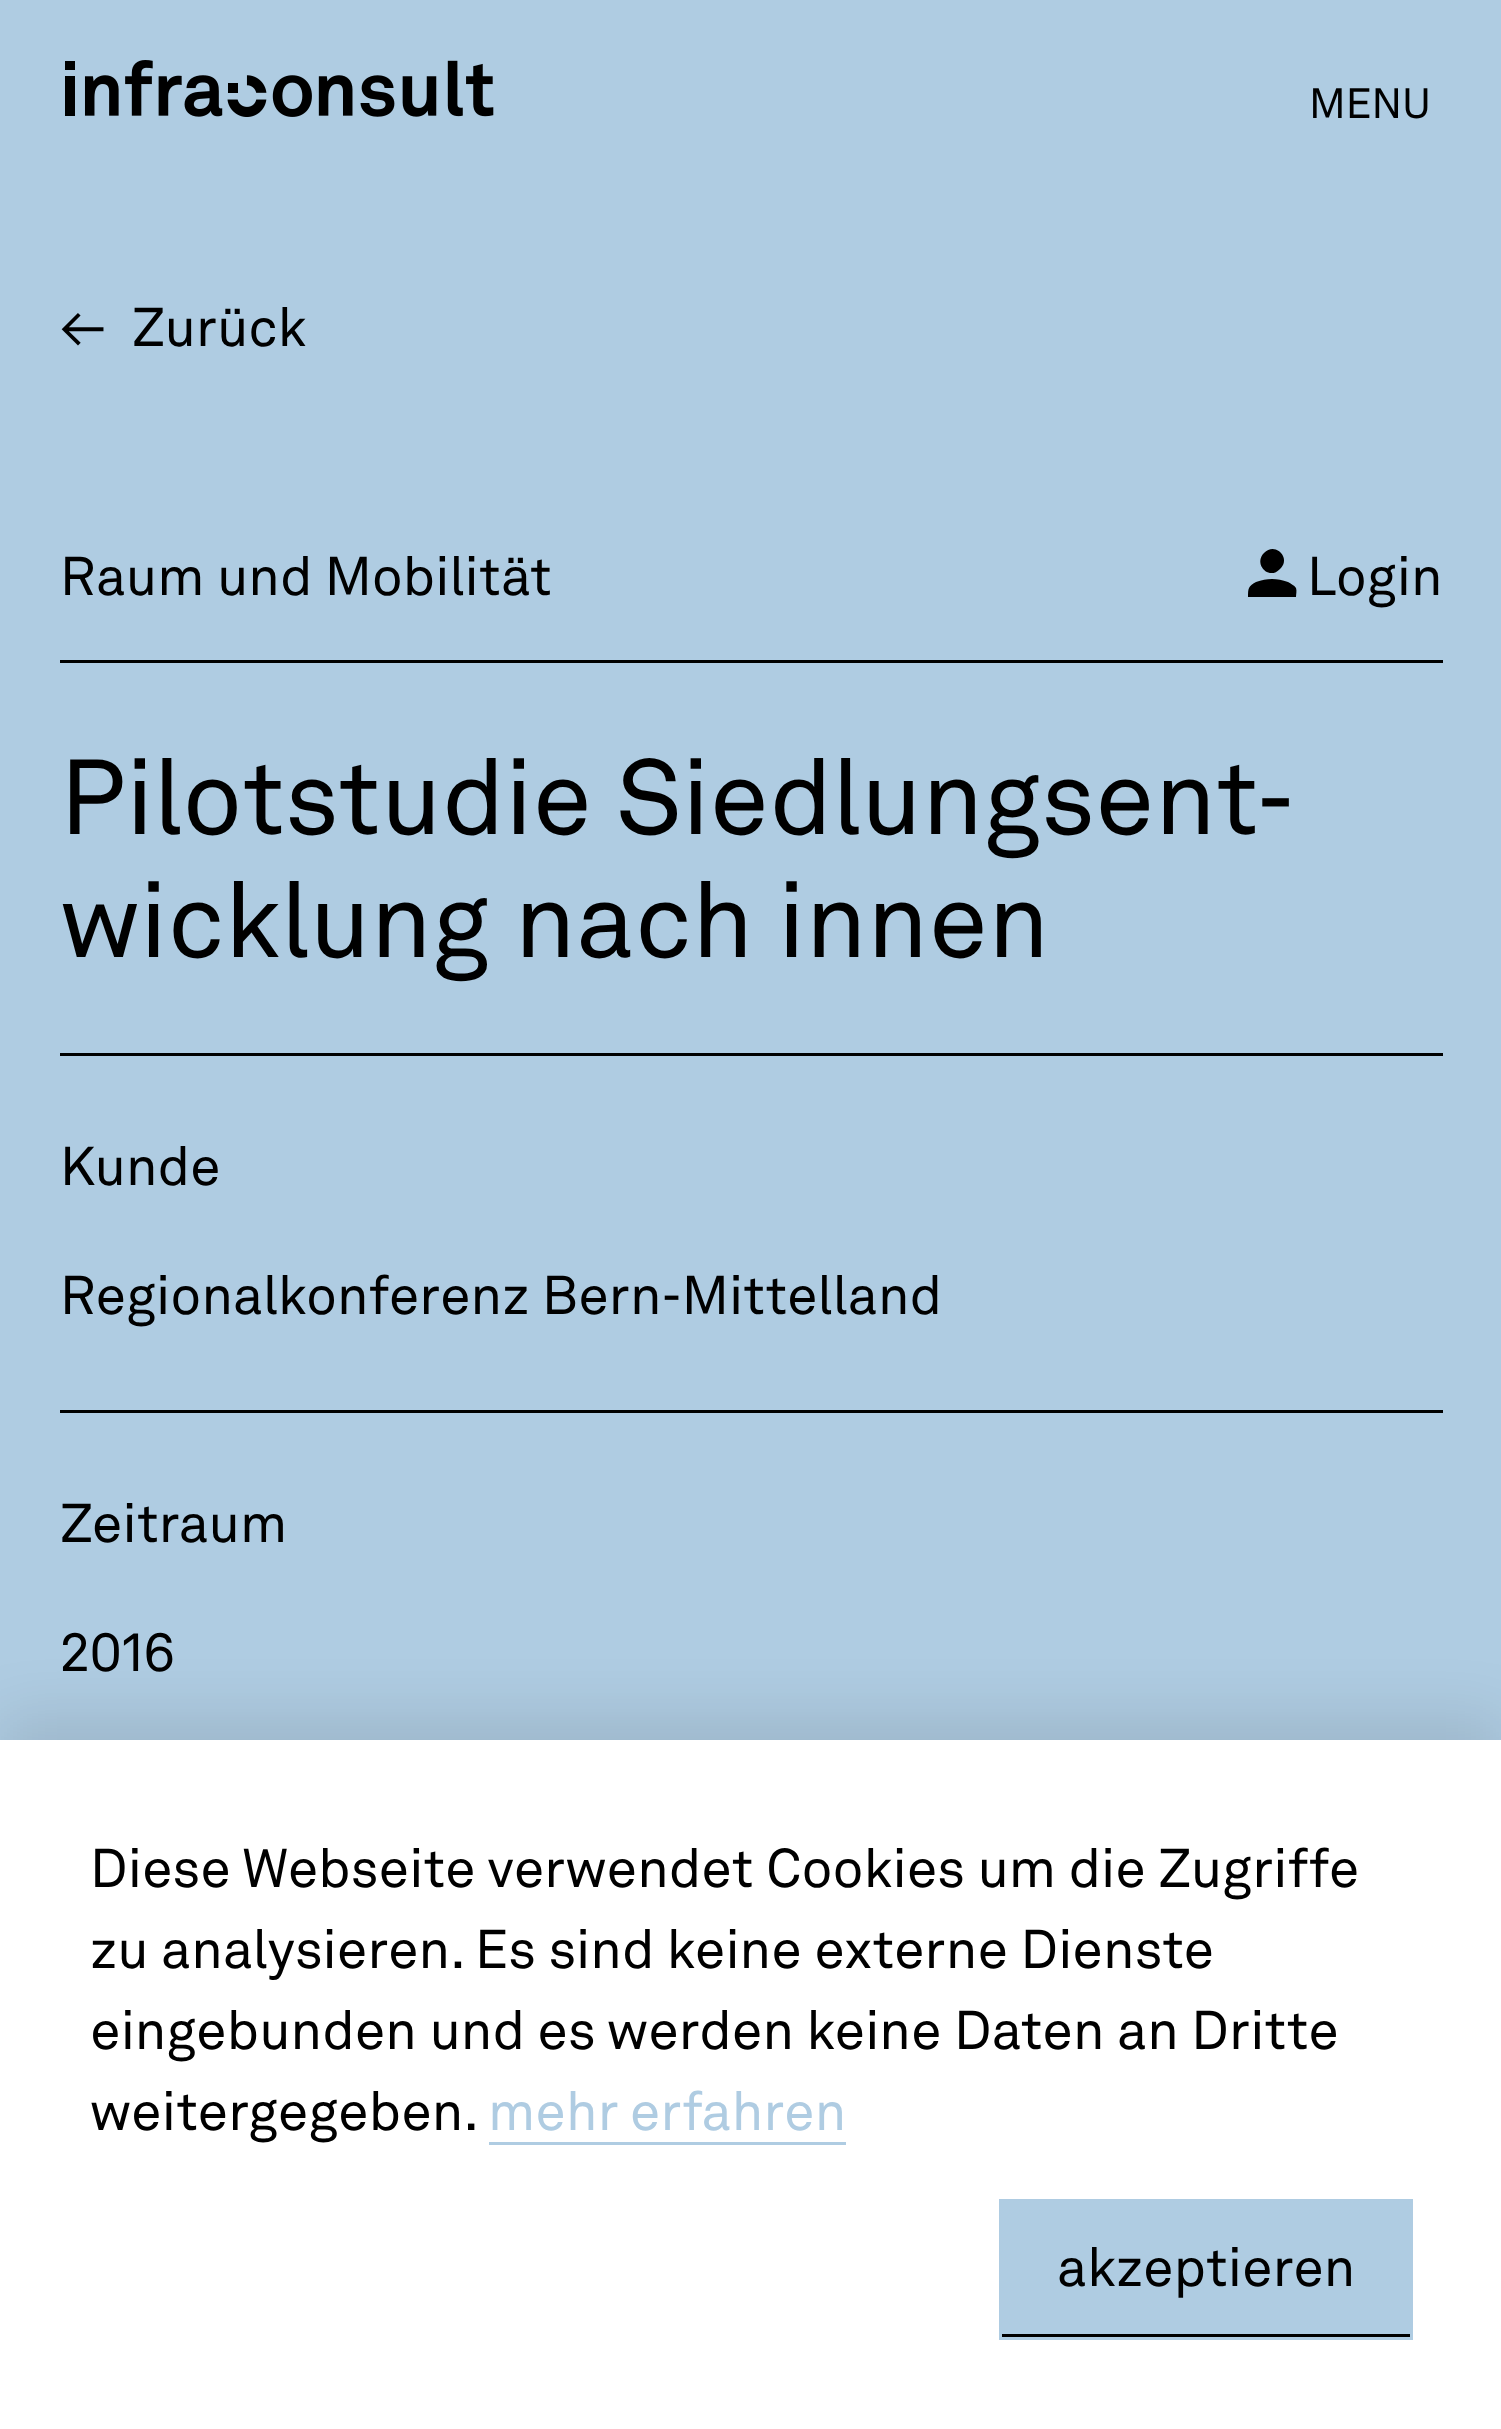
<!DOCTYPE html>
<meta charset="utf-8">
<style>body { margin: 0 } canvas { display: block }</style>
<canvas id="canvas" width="1501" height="2429"></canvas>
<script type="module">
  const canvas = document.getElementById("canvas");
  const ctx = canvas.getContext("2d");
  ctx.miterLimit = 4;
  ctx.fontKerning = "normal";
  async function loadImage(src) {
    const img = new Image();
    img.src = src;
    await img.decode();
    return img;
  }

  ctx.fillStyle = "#afcce2";
  ctx.fillRect(0, 0, 1501, 2429);
  ctx.drawImage(await loadImage("img1.png"), 65, 60, 429, 57);
  ctx.font = "42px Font";
  ctx.fillStyle = "#000000";
  ctx.fillText("MENU", 1309, 118);
  ctx.font = "54px Font";
  ctx.fillText("←", 60, 346);
  ctx.fillText("Zurück", 132, 346);
  ctx.fillText("Raum und Mobilität", 60, 595);
  ctx.beginPath();
  ctx.moveTo(1256, 582);
  ctx.bezierCurveTo(1267, 578, 1277, 578, 1288, 582);
  ctx.bezierCurveTo(1291, 584, 1294, 585, 1296, 588);
  ctx.bezierCurveTo(1297, 591, 1296, 594, 1296, 597);
  ctx.lineTo(1248, 597);
  ctx.bezierCurveTo(1248, 589, 1248, 586, 1256, 582);
  ctx.closePath();
  ctx.moveTo(1280, 569);
  ctx.bezierCurveTo(1269, 581, 1253, 564, 1264, 553);
  ctx.bezierCurveTo(1275, 541, 1292, 558, 1280, 569);
  ctx.closePath();
  ctx.fill();
  ctx.fillText("Login", 1307, 595);
  ctx.fillRect(60, 660, 1383, 3);
  ctx.fillRect(60, 1053, 1383, 3);
  ctx.font = "105px Font";
  ctx.fillText("Pilotstudie Siedlungsent-", 60, 834);
  ctx.fillText("wicklung nach innen", 60, 957);
  ctx.fillRect(60, 1410, 1383, 3);
  ctx.font = "54px Font";
  ctx.fillText("Kunde", 60, 1185);
  ctx.fillText("Regionalkonferenz Bern-Mittelland", 60, 1314);
  ctx.fillText("Zeitraum", 60, 1542);
  ctx.fillText("2016", 60, 1671);
  ctx.fillStyle = "rgba(0, 0, 0, 0.1)";
  ctx.filter = "blur(30px)";
  ctx.beginPath();
  ctx.rect(0, 1716, 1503, 690);
  ctx.fill();
  ctx.filter = "none";
  ctx.fillStyle = "#ffffff";
  ctx.fillRect(0, 1740, 1501, 689);
  ctx.fillStyle = "#000000";
  ctx.fillText("Diese Webseite verwendet Cookies um die Zugriffe", 90, 1887);
  ctx.fillText("zu analysieren. Es sind keine externe Dienste", 90, 1968);
  ctx.fillText("eingebunden und es werden keine Daten an Dritte", 90, 2049);
  ctx.fillText("weitergegeben.", 90, 2130);
  ctx.fillStyle = "#afcce2";
  ctx.fillText("mehr erfahren", 488, 2130);
  ctx.fillRect(489, 2142, 357, 3);
  ctx.fillRect(999, 2199, 414, 141);
  ctx.fillStyle = "#000000";
  ctx.fillRect(1002, 2334, 408, 3);
  ctx.fillText("akzeptieren", 1057, 2286);
</script>
